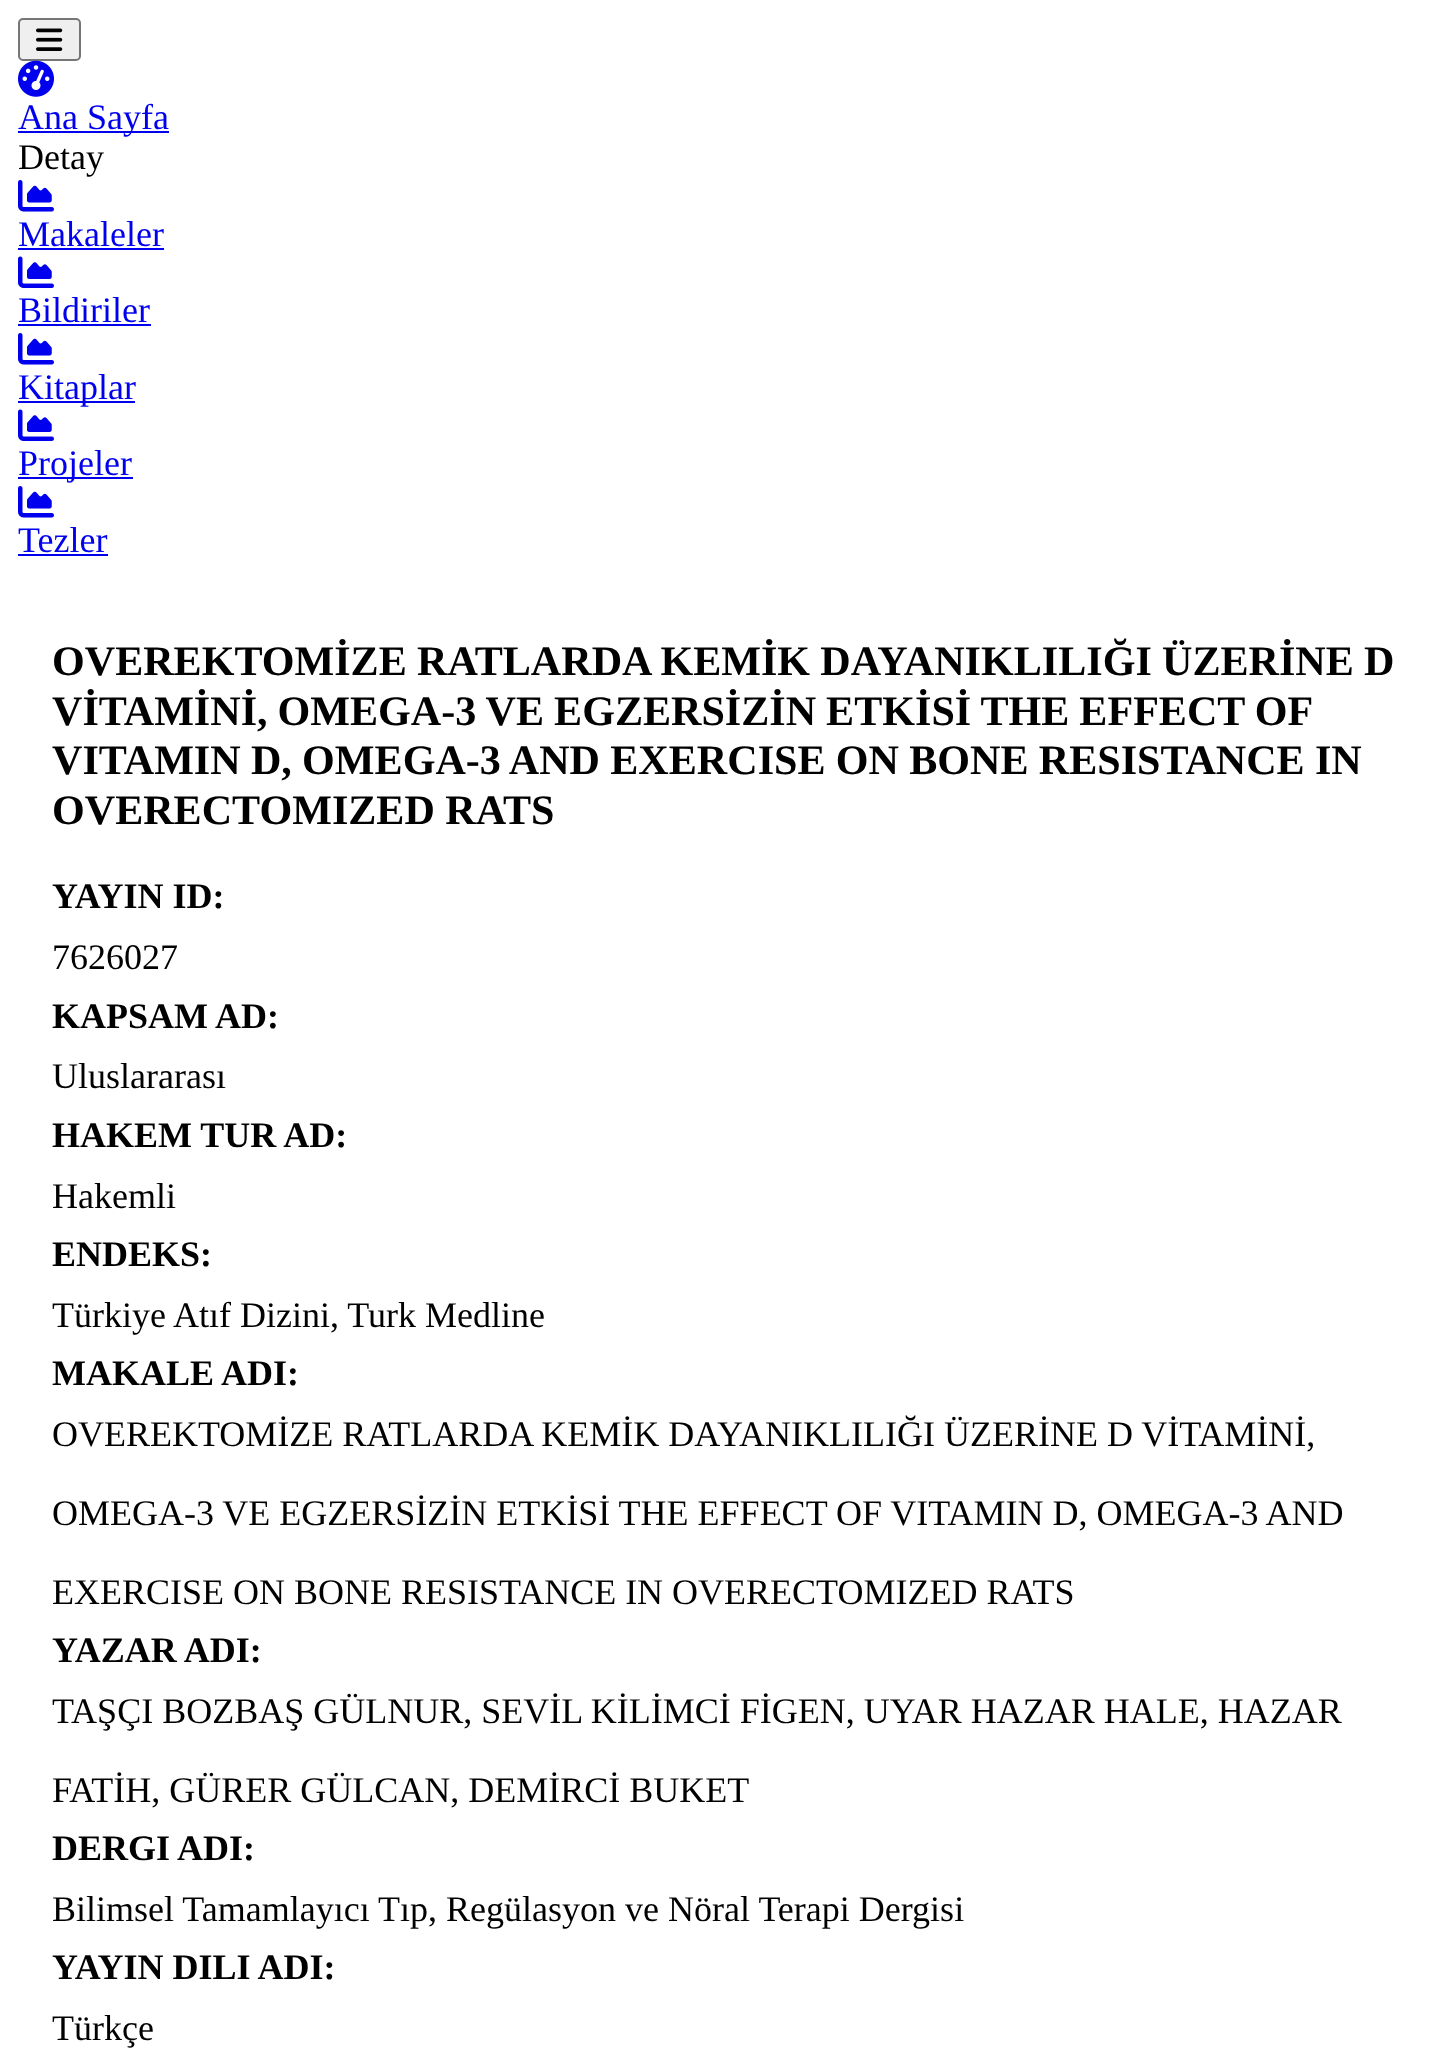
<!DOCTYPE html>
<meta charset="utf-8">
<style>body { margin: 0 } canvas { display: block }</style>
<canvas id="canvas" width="1449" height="2065"></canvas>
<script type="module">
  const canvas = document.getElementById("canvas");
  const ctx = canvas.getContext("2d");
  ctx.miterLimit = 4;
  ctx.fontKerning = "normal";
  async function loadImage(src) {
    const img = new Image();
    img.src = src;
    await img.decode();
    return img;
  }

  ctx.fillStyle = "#ffffff";
  ctx.fillRect(0, 0, 1449, 2065);
  ctx.fillStyle = "#efefef";
  ctx.beginPath();
  ctx.roundRect(19, 19, 61, 41, 4);
  ctx.fill();
  ctx.strokeStyle = "#767676";
  ctx.lineWidth = 2;
  ctx.stroke();
  ctx.drawImage(await loadImage("img1.png"), 36, 28, 27, 23);
  ctx.drawImage(await loadImage("img2.png"), 18, 60, 36, 37);
  ctx.fillStyle = "#0000ee";
  ctx.fillRect(18, 131, 151, 2);
  ctx.font = "36px Liberation Serif";
  ctx.fillText("Ana Sayfa", 18, 129);
  ctx.fillStyle = "#000000";
  ctx.fillText("Detay", 18, 169);
  ctx.drawImage(await loadImage("img3.png"), 18, 180, 36, 32);
  ctx.fillStyle = "#0000ee";
  ctx.fillText("Makaleler", 18, 246);
  ctx.fillRect(18, 248, 146, 2);
  ctx.drawImage(await loadImage("img4.png"), 18, 256, 36, 32);
  ctx.fillText("Bildiriler", 18, 322);
  ctx.fillRect(18, 324, 133, 2);
  ctx.drawImage(await loadImage("img3.png"), 18, 333, 36, 32);
  ctx.fillRect(18, 401, 117, 2);
  ctx.fillText("Kitaplar", 18, 399);
  ctx.drawImage(await loadImage("img4.png"), 18, 409, 36, 32);
  ctx.fillRect(18, 477, 115, 2);
  ctx.fillText("Projeler", 18, 475);
  ctx.drawImage(await loadImage("img3.png"), 18, 486, 36, 32);
  ctx.fillText("Tezler", 18, 552);
  ctx.fillRect(18, 554, 90, 2);
  ctx.wordSpacing = "-0.25px";
  ctx.font = "bold 42.1px Liberation Serif";
  ctx.fillStyle = "#000000";
  ctx.fillText("OVEREKTOMİZE RATLARDA KEMİK DAYANIKLILIĞI ÜZERİNE D", 52, 675);
  ctx.wordSpacing = "-0.5px";
  ctx.fillText("VİTAMİNİ, OMEGA-3 VE EGZERSİZİN ETKİSİ THE EFFECT OF", 52, 725);
  ctx.wordSpacing = "-0.25px";
  ctx.fillText("VITAMIN D, OMEGA-3 AND EXERCISE ON BONE RESISTANCE IN", 52, 774);
  ctx.wordSpacing = "0px";
  ctx.fillText("OVERECTOMIZED RATS", 52, 824);
  ctx.font = "bold 36px Liberation Serif";
  ctx.fillText("YAYIN ID:", 52, 908);
  ctx.font = "36px Liberation Serif";
  ctx.fillText("7626027", 52, 969);
  ctx.font = "bold 36px Liberation Serif";
  ctx.fillText("KAPSAM AD:", 52, 1028);
  ctx.font = "36px Liberation Serif";
  ctx.fillText("Uluslararası", 52, 1088);
  ctx.font = "bold 36px Liberation Serif";
  ctx.fillText("HAKEM TUR AD:", 52, 1147);
  ctx.font = "36px Liberation Serif";
  ctx.fillText("Hakemli", 52, 1208);
  ctx.font = "bold 36px Liberation Serif";
  ctx.fillText("ENDEKS:", 52, 1266);
  ctx.font = "36px Liberation Serif";
  ctx.fillText("Türkiye Atıf Dizini, Turk Medline", 52, 1327);
  ctx.font = "bold 36px Liberation Serif";
  ctx.fillText("MAKALE ADI:", 52, 1385);
  ctx.font = "36px Liberation Serif";
  ctx.fillText("OVEREKTOMİZE RATLARDA KEMİK DAYANIKLILIĞI ÜZERİNE D VİTAMİNİ,", 52, 1446);
  ctx.fillText("OMEGA-3 VE EGZERSİZİN ETKİSİ THE EFFECT OF VITAMIN D, OMEGA-3 AND", 52, 1525);
  ctx.fillText("EXERCISE ON BONE RESISTANCE IN OVERECTOMIZED RATS", 52, 1604);
  ctx.font = "bold 36px Liberation Serif";
  ctx.fillText("YAZAR ADI:", 52, 1662);
  ctx.font = "36px Liberation Serif";
  ctx.fillText("TAŞÇI BOZBAŞ GÜLNUR, SEVİL KİLİMCİ FİGEN, UYAR HAZAR HALE, HAZAR", 52, 1723);
  ctx.fillText("FATİH, GÜRER GÜLCAN, DEMİRCİ BUKET", 52, 1802);
  ctx.font = "bold 36px Liberation Serif";
  ctx.fillText("DERGI ADI:", 52, 1860);
  ctx.font = "36px Liberation Serif";
  ctx.fillText("Bilimsel Tamamlayıcı Tıp, Regülasyon ve Nöral Terapi Dergisi", 52, 1921);
  ctx.font = "bold 36px Liberation Serif";
  ctx.fillText("YAYIN DILI ADI:", 52, 1979);
  ctx.font = "36px Liberation Serif";
  ctx.fillText("Türkçe", 52, 2040);
</script>
